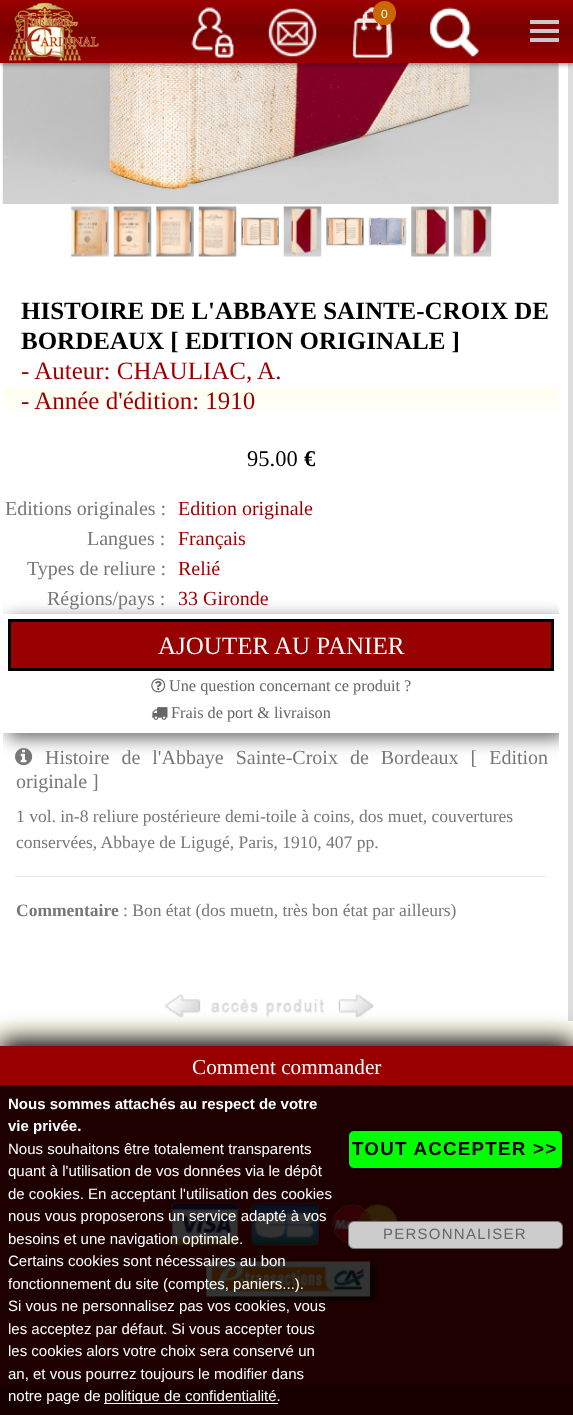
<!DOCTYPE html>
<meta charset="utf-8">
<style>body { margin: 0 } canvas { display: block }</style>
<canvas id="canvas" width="573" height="1415"></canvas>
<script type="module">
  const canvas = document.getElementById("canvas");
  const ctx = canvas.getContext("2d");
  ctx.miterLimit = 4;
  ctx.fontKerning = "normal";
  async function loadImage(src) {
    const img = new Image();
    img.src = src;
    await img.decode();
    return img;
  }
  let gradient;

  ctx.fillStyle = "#fffeef";
  ctx.fillRect(0, 0, 573, 1415);
  ctx.fillStyle = "#dddddd";
  ctx.fillRect(568, 63, 5, 958);
  ctx.fillStyle = "#ffffff";
  ctx.fillRect(0, 63, 568, 958);
  ctx.drawImage(await loadImage("img6.png"), 2, 63, 557, 141);
  ctx.fillStyle = "rgba(0, 0, 0, 0.5)";
  ctx.filter = "blur(2.5px)";
  ctx.beginPath();
  ctx.rect(0, 1, 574, 63);
  ctx.fill();
  ctx.filter = "none";
  gradient = ctx.createLinearGradient(287, 0, 287, 63);
  gradient.addColorStop(0, "#990000");
  gradient.addColorStop(0.5, "#770000");
  gradient.addColorStop(1, "#990000");
  ctx.fillStyle = gradient;
  ctx.fillRect(0, 0, 573, 63);
  ctx.drawImage(await loadImage("img1.png"), 9, 2, 90, 59);
  ctx.drawImage(await loadImage("img2.png"), 191, 7, 43, 51);
  ctx.drawImage(await loadImage("img3.png"), 268, 8, 49, 49);
  ctx.drawImage(await loadImage("img4.png"), 352, 7, 41, 51);
  ctx.fillStyle = "#cc6600";
  ctx.beginPath();
  ctx.roundRect(373, 1, 23, 24, 11.5);
  ctx.fill();
  ctx.font = "12px Liberation Sans";
  ctx.fillStyle = "#ffffff";
  ctx.fillText("0", 381, 18);
  ctx.drawImage(await loadImage("img5.png"), 429, 7, 50, 50);
  ctx.fillStyle = "#c9c9c9";
  ctx.fillRect(530, 29, 29, 4);
  ctx.fillRect(530, 20, 29, 4);
  ctx.fillRect(530, 38, 29, 4);
  ctx.drawImage(await loadImage("img7.png"), 71, 206, 38, 51);
  ctx.drawImage(await loadImage("img8.png"), 113, 206, 39, 51);
  ctx.drawImage(await loadImage("img9.png"), 156, 206, 38, 51);
  ctx.drawImage(await loadImage("img10.png"), 198, 206, 39, 51);
  ctx.drawImage(await loadImage("img11.png"), 241, 217, 38, 29);
  ctx.drawImage(await loadImage("img12.png"), 283, 206, 39, 51);
  ctx.drawImage(await loadImage("img13.png"), 326, 217, 38, 29);
  ctx.drawImage(await loadImage("img14.png"), 368, 217, 39, 29);
  ctx.drawImage(await loadImage("img15.png"), 411, 206, 38, 51);
  ctx.drawImage(await loadImage("img16.png"), 453, 206, 39, 51);
  ctx.drawImage(await loadImage("img17.png"), 2, 387, 557, 27);
  ctx.font = "bold 25px Liberation Serif";
  ctx.fillStyle = "#000000";
  ctx.fillText("HISTOIRE DE L'ABBAYE SAINTE-CROIX DE", 21, 319);
  ctx.fillText("BORDEAUX [ EDITION ORIGINALE ]", 21, 349);
  ctx.font = "25px Liberation Serif";
  ctx.fillStyle = "#990000";
  ctx.fillText("- Auteur: CHAULIAC, A.", 21, 379);
  ctx.fillText("- Année d'édition: 1910", 21, 409);
  ctx.font = "22.5px Liberation Serif";
  ctx.fillStyle = "#000000";
  ctx.fillText("95.00", 247, 466);
  ctx.font = "bold 22.5px Liberation Serif";
  ctx.fillText("€", 304, 466);
  ctx.font = "20px Liberation Serif";
  ctx.fillStyle = "#777777";
  ctx.fillText("Editions originales :", 5, 515);
  ctx.fillStyle = "#990000";
  ctx.fillText("Edition originale", 178, 515);
  ctx.fillStyle = "#777777";
  ctx.fillText("Langues :", 87, 545);
  ctx.fillStyle = "#990000";
  ctx.fillText("Français", 178, 545);
  ctx.fillStyle = "#777777";
  ctx.fillText("Types de reliure :", 27, 575);
  ctx.fillStyle = "#990000";
  ctx.fillText("Relié", 178, 575);
  ctx.save();
  ctx.beginPath();
  ctx.rect(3, 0, 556, 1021);
  ctx.clip();
  ctx.beginPath();
  ctx.moveTo(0, 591);
  ctx.lineTo(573, 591);
  ctx.lineTo(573, 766);
  ctx.lineTo(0, 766);
  ctx.closePath();
  ctx.moveTo(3, 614);
  ctx.lineTo(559, 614);
  ctx.lineTo(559, 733);
  ctx.lineTo(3, 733);
  ctx.closePath();
  ctx.clip("evenodd");
  ctx.fillStyle = "#666666";
  ctx.filter = "blur(9px)";
  ctx.beginPath();
  ctx.rect(8, 619, 556, 119);
  ctx.fill();
  ctx.filter = "none";
  ctx.restore();
  ctx.fillStyle = "#777777";
  ctx.fillText("Régions/pays :", 47, 605);
  ctx.fillStyle = "#990000";
  ctx.fillText("33 Gironde", 178, 605);
  ctx.beginPath();
  ctx.rect(9.5, 620.5, 543, 49);
  ctx.fill();
  ctx.strokeStyle = "#000000";
  ctx.lineWidth = 3;
  ctx.stroke();
  ctx.font = "25px Liberation Serif";
  ctx.fillStyle = "#ffffff";
  ctx.fillText("AJOUTER AU PANIER", 158, 654);
  ctx.drawImage(await loadImage("img18.png"), 151, 678, 15, 15);
  ctx.font = "16.25px Liberation Serif";
  ctx.fillStyle = "#666666";
  ctx.fillText("Une question concernant ce produit ?", 169, 691);
  ctx.drawImage(await loadImage("img19.png"), 151, 707, 17, 13);
  ctx.fillText("Frais de port & livraison", 171, 718);
  ctx.drawImage(await loadImage("img20.png"), 15, 748, 18, 18);
  ctx.wordSpacing = "7px";
  ctx.font = "20px Liberation Serif";
  ctx.fillStyle = "#777777";
  ctx.fillText("Histoire de l'Abbaye Sainte-Croix de Bordeaux [ Edition", 45, 764);
  ctx.wordSpacing = "0px";
  ctx.fillText("originale ]", 16, 788);
  ctx.font = "17.5px Liberation Serif";
  ctx.fillText("1 vol. in-8 reliure postérieure demi-toile à coins, dos muet, couvertures", 16, 822);
  ctx.fillText("conservées, Abbaye de Ligugé, Paris, 1910, 407 pp.", 16, 848);
  ctx.fillStyle = "#e6e6e6";
  ctx.fillRect(15, 876, 531, 1);
  ctx.font = "bold 17.5px Liberation Serif";
  ctx.fillStyle = "#777777";
  ctx.fillText("Commentaire", 16, 916);
  ctx.font = "17.5px Liberation Serif";
  ctx.fillText(": Bon état (dos muetn, très bon état par ailleurs)", 123, 916);
  ctx.drawImage(await loadImage("img21.png"), 163, 994, 40, 28);
  ctx.drawImage(await loadImage("img22.png"), 209, 999, 118, 23);
  ctx.drawImage(await loadImage("img23.png"), 333, 994, 44, 28);
  ctx.fillStyle = "#000000";
  ctx.filter = "blur(12.5px)";
  ctx.beginPath();
  ctx.rect(0, 1040, 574, 339);
  ctx.fill();
  ctx.filter = "none";
  ctx.fillStyle = "#990000";
  ctx.fillRect(0, 1046, 573, 339);
  ctx.font = "21.25px Liberation Serif";
  ctx.fillStyle = "#ffffff";
  ctx.fillText("Comment commander", 192, 1074);
  ctx.drawImage(await loadImage("img24.png"), 170, 1198, 230, 107);
  ctx.fillStyle = "#770000";
  ctx.fillRect(0, 1385, 573, 30);
  ctx.fillStyle = "rgba(0, 0, 0, 0.8)";
  ctx.fillRect(0, 1085, 573, 330);
  ctx.font = "bold 15px Liberation Sans";
  ctx.fillStyle = "#ffffff";
  ctx.fillText("Nous sommes attachés au respect de votre", 8, 1109);
  ctx.fillText("vie privée.", 8, 1131);
  ctx.font = "15px Liberation Sans";
  ctx.fillText("Nous souhaitons être totalement transparents", 8, 1154);
  ctx.fillText("quant à l'utilisation de vos données via le dépôt", 8, 1176);
  ctx.fillText("de cookies. En acceptant l'utilisation des cookies", 8, 1199);
  ctx.fillText("nous vous proposerons un service adapté à vos", 8, 1221);
  ctx.fillText("besoins et une navigation optimale.", 8, 1244);
  ctx.fillText("Certains cookies sont nécessaires au bon", 8, 1266);
  ctx.fillText("fonctionnement du site (comptes, paniers...).", 8, 1289);
  ctx.fillText("Si vous ne personnalisez pas vos cookies, vous", 8, 1311);
  ctx.fillText("les acceptez par défaut. Si vous accepter tous", 8, 1334);
  ctx.fillText("les cookies alors votre choix sera conservé un", 8, 1356);
  ctx.fillText("an, et vous pourrez toujours le modifier dans", 8, 1379);
  ctx.fillText("notre page de", 8, 1401);
  ctx.fillRect(104, 1403, 174, 1);
  ctx.fillText("politique de confidentialité.", 104, 1401);
  ctx.fillStyle = "#00ff00";
  ctx.beginPath();
  ctx.roundRect(348.5, 1130.5, 214, 38, 5.5);
  ctx.fill();
  ctx.lineWidth = 1;
  ctx.stroke();
  ctx.letterSpacing = "1.25px";
  ctx.font = "bold 18.75px Liberation Sans";
  ctx.fillStyle = "#000000";
  ctx.fillText("TOUT ACCEPTER >>", 352, 1155);
  ctx.fillStyle = "#cccccc";
  ctx.beginPath();
  ctx.roundRect(348.5, 1221.5, 214, 27, 5.5);
  ctx.fill();
  ctx.strokeStyle = "#777777";
  ctx.stroke();
  ctx.font = "15px Liberation Sans";
  ctx.fillStyle = "#666666";
  ctx.fillText("PERSONNALISER", 383, 1239);
</script>
